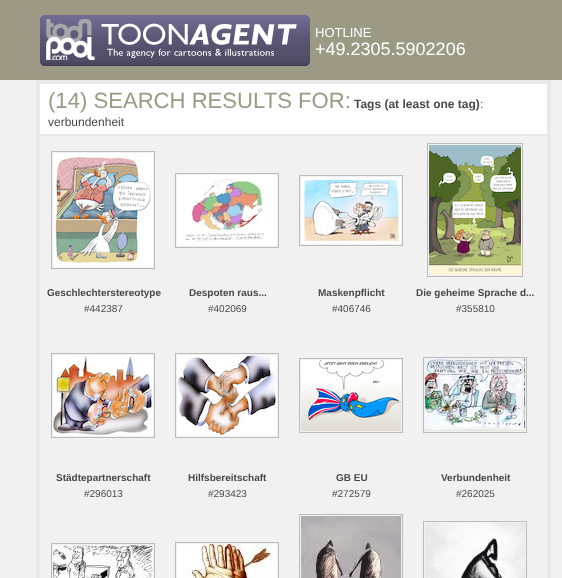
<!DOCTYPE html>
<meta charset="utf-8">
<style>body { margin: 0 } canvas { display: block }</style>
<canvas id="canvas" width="562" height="578"></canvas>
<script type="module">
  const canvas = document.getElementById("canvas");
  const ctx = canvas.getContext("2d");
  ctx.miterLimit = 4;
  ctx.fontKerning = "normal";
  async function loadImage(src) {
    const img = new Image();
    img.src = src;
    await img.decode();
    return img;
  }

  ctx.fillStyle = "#f1f1f1";
  ctx.fillRect(0, 0, 562, 578);
  ctx.fillStyle = "#9c9984";
  ctx.fillRect(0, 0, 562, 80);
  ctx.drawImage(await loadImage("img1.png"), 40, 15, 270, 51);
  ctx.font = "13px Liberation Sans";
  ctx.fillStyle = "#ffffff";
  ctx.fillText("HOTLINE", 315, 37);
  ctx.font = "18px Liberation Sans";
  ctx.fillText("+49.2305.5902206", 315, 55);
  ctx.strokeStyle = "#e8e8e8";
  ctx.lineWidth = 4;
  ctx.strokeRect(38, 82, 511, 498);
  ctx.fillRect(40, 84, 507, 50);
  ctx.font = "22.1px Liberation Sans";
  ctx.fillStyle = "#9c9984";
  ctx.fillText("(14) SEARCH RESULTS FOR:", 48, 108);
  ctx.font = "bold 12px Liberation Sans";
  ctx.fillStyle = "#494949";
  ctx.fillText("Tags (at least one tag)", 354, 108);
  ctx.font = "12px Liberation Sans";
  ctx.fillText(":", 480, 108);
  ctx.fillText("verbundenheit", 48, 126);
  ctx.fillStyle = "#e8e8e8";
  ctx.fillRect(40, 134, 507, 2);
  ctx.strokeStyle = "#bbbbbb";
  ctx.lineWidth = 1;
  ctx.strokeRect(51.5, 151.5, 103, 117);
  ctx.drawImage(await loadImage("img2.png"), 53, 153, 100, 114);
  ctx.font = "bold 10px Liberation Sans";
  ctx.fillStyle = "#494949";
  ctx.fillText("Geschlechterstereotype", 47, 296);
  ctx.font = "10px Liberation Sans";
  ctx.fillText("#442387", 84, 312);
  ctx.strokeRect(175.5, 173.5, 103, 74);
  ctx.drawImage(await loadImage("img3.png"), 177, 175, 100, 71);
  ctx.font = "bold 10px Liberation Sans";
  ctx.fillText("Despoten raus...", 189, 296);
  ctx.font = "10px Liberation Sans";
  ctx.fillText("#402069", 208, 312);
  ctx.strokeRect(299.5, 175.5, 103, 70);
  ctx.drawImage(await loadImage("img4.png"), 301, 177, 100, 67);
  ctx.font = "bold 10px Liberation Sans";
  ctx.fillText("Maskenpflicht", 318, 296);
  ctx.font = "10px Liberation Sans";
  ctx.fillText("#406746", 332, 312);
  ctx.strokeRect(427.5, 143.5, 95, 133);
  ctx.drawImage(await loadImage("img5.png"), 429, 145, 92, 130);
  ctx.font = "bold 10px Liberation Sans";
  ctx.fillText("Die geheime Sprache d...", 416, 296);
  ctx.font = "10px Liberation Sans";
  ctx.fillText("#355810", 456, 312);
  ctx.strokeRect(51.5, 353.5, 103, 84);
  ctx.drawImage(await loadImage("img6.png"), 53, 355, 100, 81);
  ctx.font = "bold 10px Liberation Sans";
  ctx.fillText("Städtepartnerschaft", 56, 481);
  ctx.font = "10px Liberation Sans";
  ctx.fillText("#296013", 84, 497);
  ctx.strokeRect(175.5, 353.5, 103, 84);
  ctx.drawImage(await loadImage("img7.png"), 177, 355, 100, 81);
  ctx.font = "bold 10px Liberation Sans";
  ctx.fillText("Hilfsbereitschaft", 188, 481);
  ctx.font = "10px Liberation Sans";
  ctx.fillText("#293423", 208, 497);
  ctx.strokeRect(299.5, 358.5, 103, 74);
  ctx.drawImage(await loadImage("img8.png"), 301, 360, 100, 71);
  ctx.font = "bold 10px Liberation Sans";
  ctx.fillText("GB EU", 336, 481);
  ctx.font = "10px Liberation Sans";
  ctx.fillText("#272579", 332, 497);
  ctx.strokeRect(423.5, 357.5, 103, 75);
  ctx.drawImage(await loadImage("img9.png"), 425, 359, 100, 72);
  ctx.font = "bold 10px Liberation Sans";
  ctx.fillText("Verbundenheit", 441, 481);
  ctx.font = "10px Liberation Sans";
  ctx.fillText("#262025", 456, 497);
  ctx.strokeRect(51.5, 543.5, 103, 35);
  ctx.drawImage(await loadImage("img10.png"), 53, 545, 100, 33);
  ctx.strokeRect(175.5, 542.5, 103, 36);
  ctx.drawImage(await loadImage("img11.png"), 177, 544, 100, 34);
  ctx.strokeRect(299.5, 514.5, 103, 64);
  ctx.drawImage(await loadImage("img12.png"), 301, 516, 100, 62);
  ctx.strokeRect(423.5, 521.5, 103, 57);
  ctx.drawImage(await loadImage("img13.png"), 425, 523, 100, 55);
</script>
